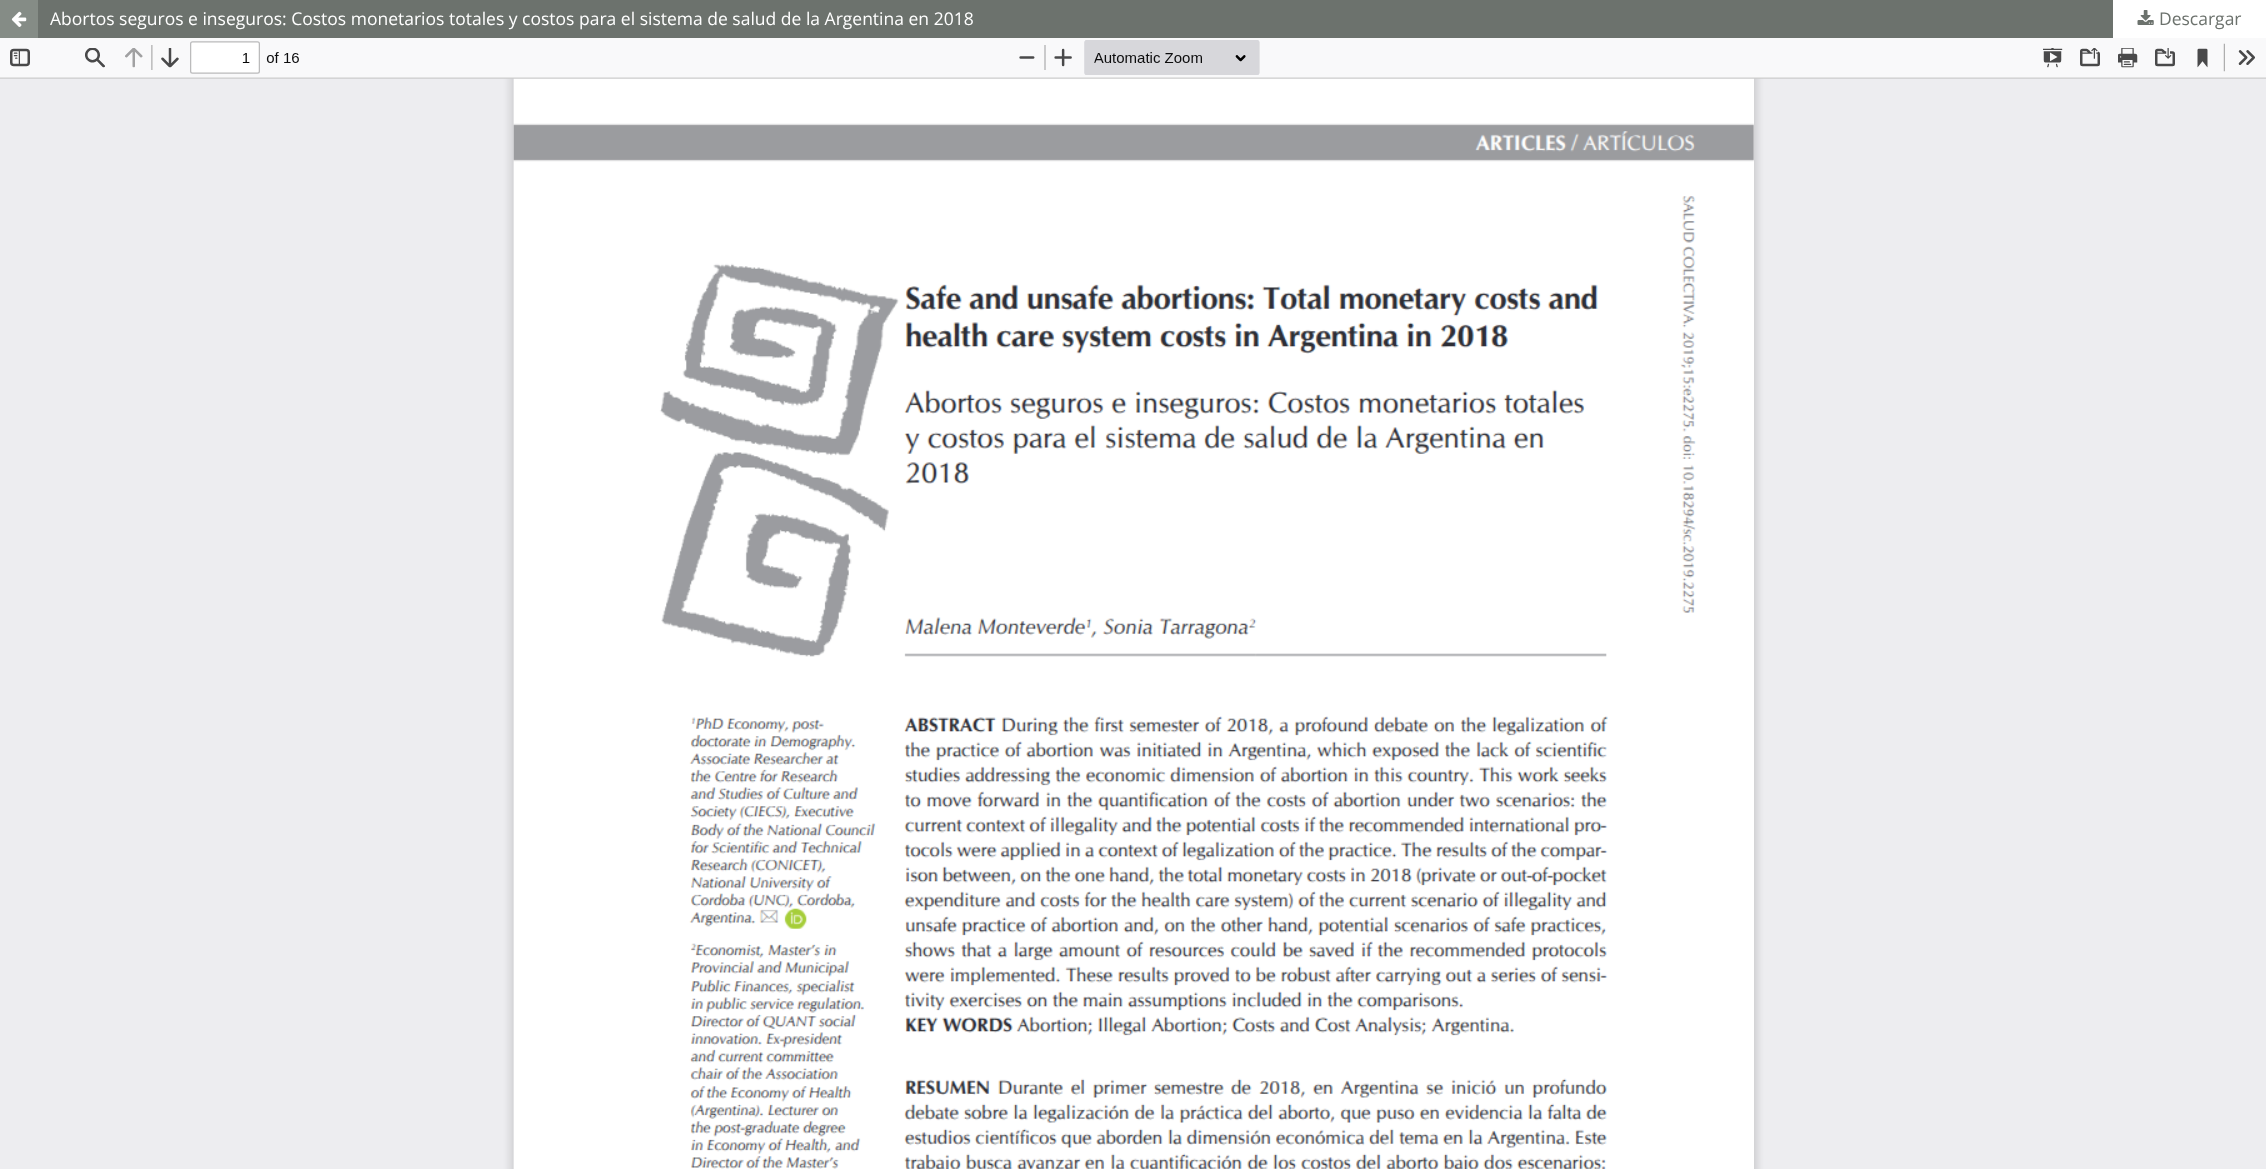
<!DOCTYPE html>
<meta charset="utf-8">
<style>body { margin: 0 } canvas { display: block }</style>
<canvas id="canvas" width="2266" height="1169"></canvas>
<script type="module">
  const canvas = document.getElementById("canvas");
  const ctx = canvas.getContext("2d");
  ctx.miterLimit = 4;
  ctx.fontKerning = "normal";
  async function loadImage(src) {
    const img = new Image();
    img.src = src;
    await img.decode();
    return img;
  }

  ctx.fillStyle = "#ffffff";
  ctx.fillRect(0, 0, 2266, 1169);
  ctx.fillStyle = "#6c726d";
  ctx.fillRect(38, 0, 2075, 38);
  ctx.fillStyle = "#858c86";
  ctx.fillRect(0, 0, 38, 38);
  ctx.drawImage(await loadImage("img1.png"), 11, 11, 16, 16);
  ctx.font = "17.5px Open Sans";
  ctx.fillStyle = "#ffffff";
  ctx.fillText("Abortos seguros e inseguros: Costos monetarios totales y costos para el sistema de salud de la Argentina en 2018", 50, 25);
  ctx.drawImage(await loadImage("img2.png"), 2137, 10, 17, 15);
  ctx.fillStyle = "#6c726d";
  ctx.fillText("Descargar", 2159, 25);
  ctx.drawImage(await loadImage("img3.png"), 0, 38, 2266, 1131);
</script>
